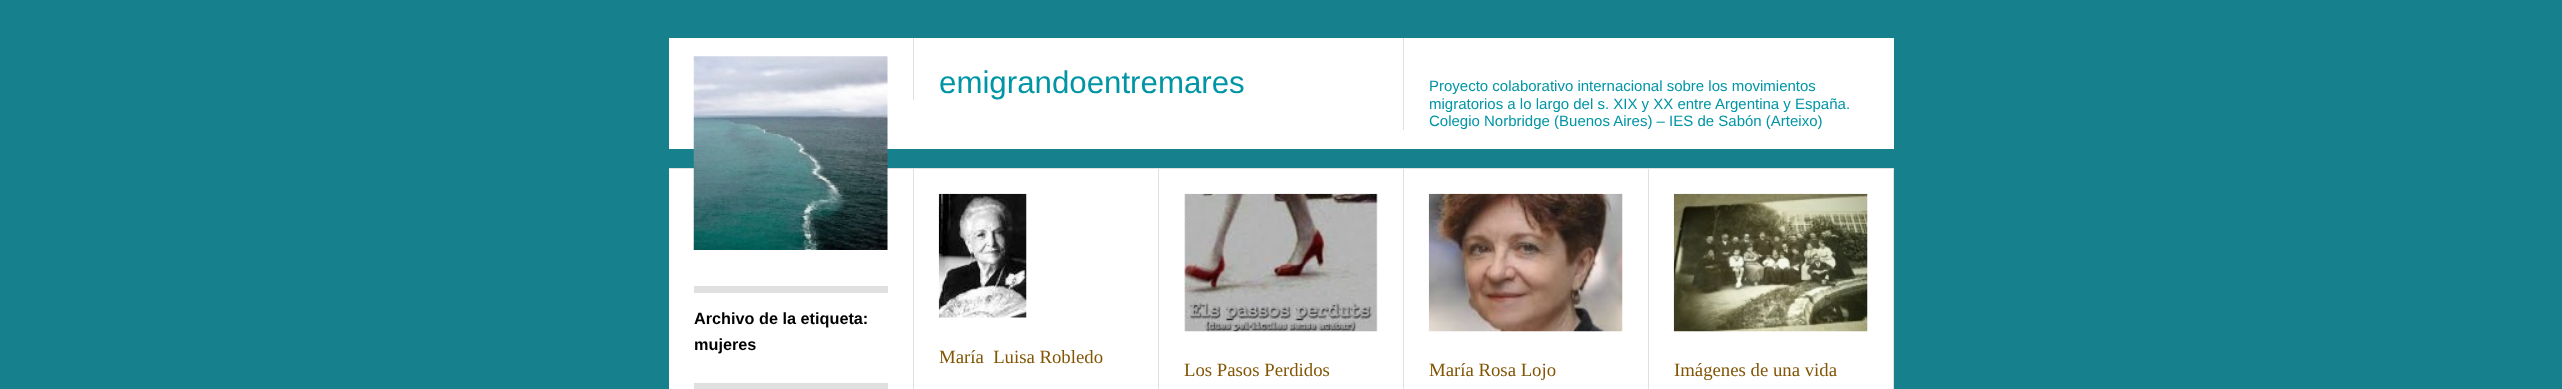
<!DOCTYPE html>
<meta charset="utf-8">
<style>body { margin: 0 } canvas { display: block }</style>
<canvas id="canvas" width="2562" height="389"></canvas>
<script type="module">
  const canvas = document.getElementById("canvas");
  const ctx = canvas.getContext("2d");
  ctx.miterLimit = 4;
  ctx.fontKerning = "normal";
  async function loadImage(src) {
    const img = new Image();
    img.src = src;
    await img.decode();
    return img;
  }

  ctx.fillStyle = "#16808c";
  ctx.fillRect(0, 0, 2562, 389);
  ctx.fillStyle = "#ffffff";
  ctx.fillRect(669, 38, 1225, 111);
  ctx.fillRect(669, 169, 1224, 220);
  ctx.fillStyle = "#e0e0e0";
  ctx.fillRect(669, 168, 1225, 1);
  ctx.drawImage(await loadImage("img1.png"), 693, 56, 195, 194);
  ctx.fillRect(913, 38, 1, 62);
  ctx.font = "31.25px Liberation Sans";
  ctx.fillStyle = "#0095a5";
  ctx.fillText("emigrandoentremares", 939, 93);
  ctx.fillStyle = "#e0e0e0";
  ctx.fillRect(1403, 38, 1, 92);
  ctx.font = "15px Liberation Sans";
  ctx.fillStyle = "#0095a5";
  ctx.fillText("Proyecto colaborativo internacional sobre los movimientos", 1429, 91);
  ctx.fillText("migratorios a lo largo del s. XIX y XX entre Argentina y España.", 1429, 109);
  ctx.fillText("Colegio Norbridge (Buenos Aires) – IES de Sabón (Arteixo)", 1429, 126);
  ctx.fillStyle = "#e0e0e0";
  ctx.fillRect(913, 168, 1, 221);
  ctx.fillRect(694, 286, 194, 7);
  ctx.font = "bold 16.25px Liberation Sans";
  ctx.fillStyle = "#000000";
  ctx.fillText("Archivo de la etiqueta:", 694, 324);
  ctx.fillText("mujeres", 694, 350);
  ctx.fillStyle = "#e0e0e0";
  ctx.fillRect(694, 383, 194, 6);
  ctx.fillRect(1158, 168, 1, 221);
  ctx.drawImage(await loadImage("img2.png"), 938, 193, 89, 125);
  ctx.font = "18.75px Liberation Serif";
  ctx.fillStyle = "#835504";
  ctx.fillText("María  Luisa Robledo", 939, 363);
  ctx.fillStyle = "#e0e0e0";
  ctx.fillRect(1403, 168, 1, 221);
  ctx.drawImage(await loadImage("img3.png"), 1184, 193, 194, 139);
  ctx.fillStyle = "#835504";
  ctx.fillText("Los Pasos Perdidos", 1184, 376);
  ctx.fillStyle = "#e0e0e0";
  ctx.fillRect(1648, 168, 1, 221);
  ctx.drawImage(await loadImage("img4.png"), 1428, 193, 195, 139);
  ctx.fillStyle = "#835504";
  ctx.fillText("María Rosa Lojo", 1429, 376);
  ctx.fillStyle = "#e0e0e0";
  ctx.fillRect(1893, 168, 1, 221);
  ctx.drawImage(await loadImage("img5.png"), 1673, 193, 195, 139);
  ctx.fillStyle = "#835504";
  ctx.fillText("Imágenes de una vida", 1674, 376);
</script>
